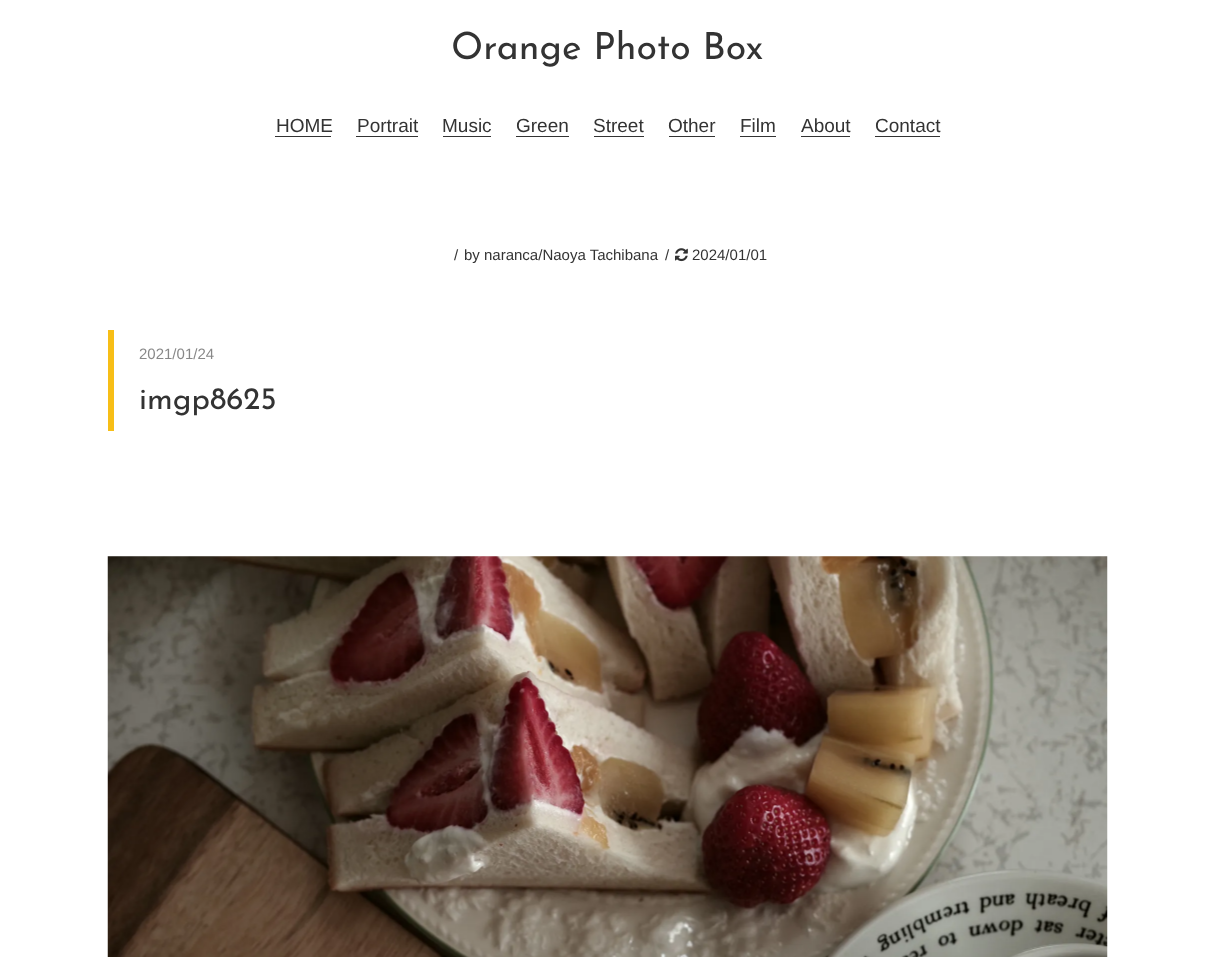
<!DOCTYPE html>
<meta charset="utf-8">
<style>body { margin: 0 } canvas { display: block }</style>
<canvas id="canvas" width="1214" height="957"></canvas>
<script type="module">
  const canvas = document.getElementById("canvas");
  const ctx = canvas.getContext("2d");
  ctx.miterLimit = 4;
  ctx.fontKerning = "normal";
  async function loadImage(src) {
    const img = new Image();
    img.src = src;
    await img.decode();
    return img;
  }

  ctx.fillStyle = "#ffffff";
  ctx.fillRect(0, 0, 1214, 957);
  ctx.font = "37.5px Josefin Sans";
  ctx.fillStyle = "#333333";
  ctx.fillText("Orange Photo Box", 451, 59);
  ctx.font = "19px Liberation Sans";
  ctx.fillText("HOME", 276, 132);
  ctx.fillRect(275, 136, 56, 1);
  ctx.fillText("Portrait", 357, 132);
  ctx.fillRect(356, 136, 62, 1);
  ctx.fillText("Music", 442, 132);
  ctx.fillRect(443, 136, 48, 1);
  ctx.fillText("Green", 516, 132);
  ctx.fillRect(516, 136, 53, 1);
  ctx.fillText("Street", 593, 132);
  ctx.fillRect(594, 136, 50, 1);
  ctx.fillText("Other", 668, 132);
  ctx.fillRect(669, 136, 46, 1);
  ctx.fillText("Film", 740, 132);
  ctx.fillRect(740, 136, 36, 1);
  ctx.fillText("About", 801, 132);
  ctx.fillRect(801, 136, 49, 1);
  ctx.fillText("Contact", 875, 132);
  ctx.fillRect(875, 136, 65, 1);
  ctx.font = "15px Liberation Sans";
  ctx.fillText("/", 454, 260);
  ctx.fillText("by naranca/Naoya Tachibana", 464, 260);
  ctx.fillText("/", 665, 260);
  ctx.drawImage(await loadImage("img1.png"), 675, 248, 13, 14);
  ctx.fillText("2024/01/01", 692, 260);
  ctx.fillStyle = "#f7be16";
  ctx.fillRect(108, 330, 6, 101);
  ctx.fillStyle = "#888888";
  ctx.fillText("2021/01/24", 139, 359);
  ctx.font = "31.25px Josefin Sans";
  ctx.fillStyle = "#333333";
  ctx.fillText("imgp8625", 139, 409);
  ctx.drawImage(await loadImage("img2.png"), 107, 556, 1001, 401);
</script>
